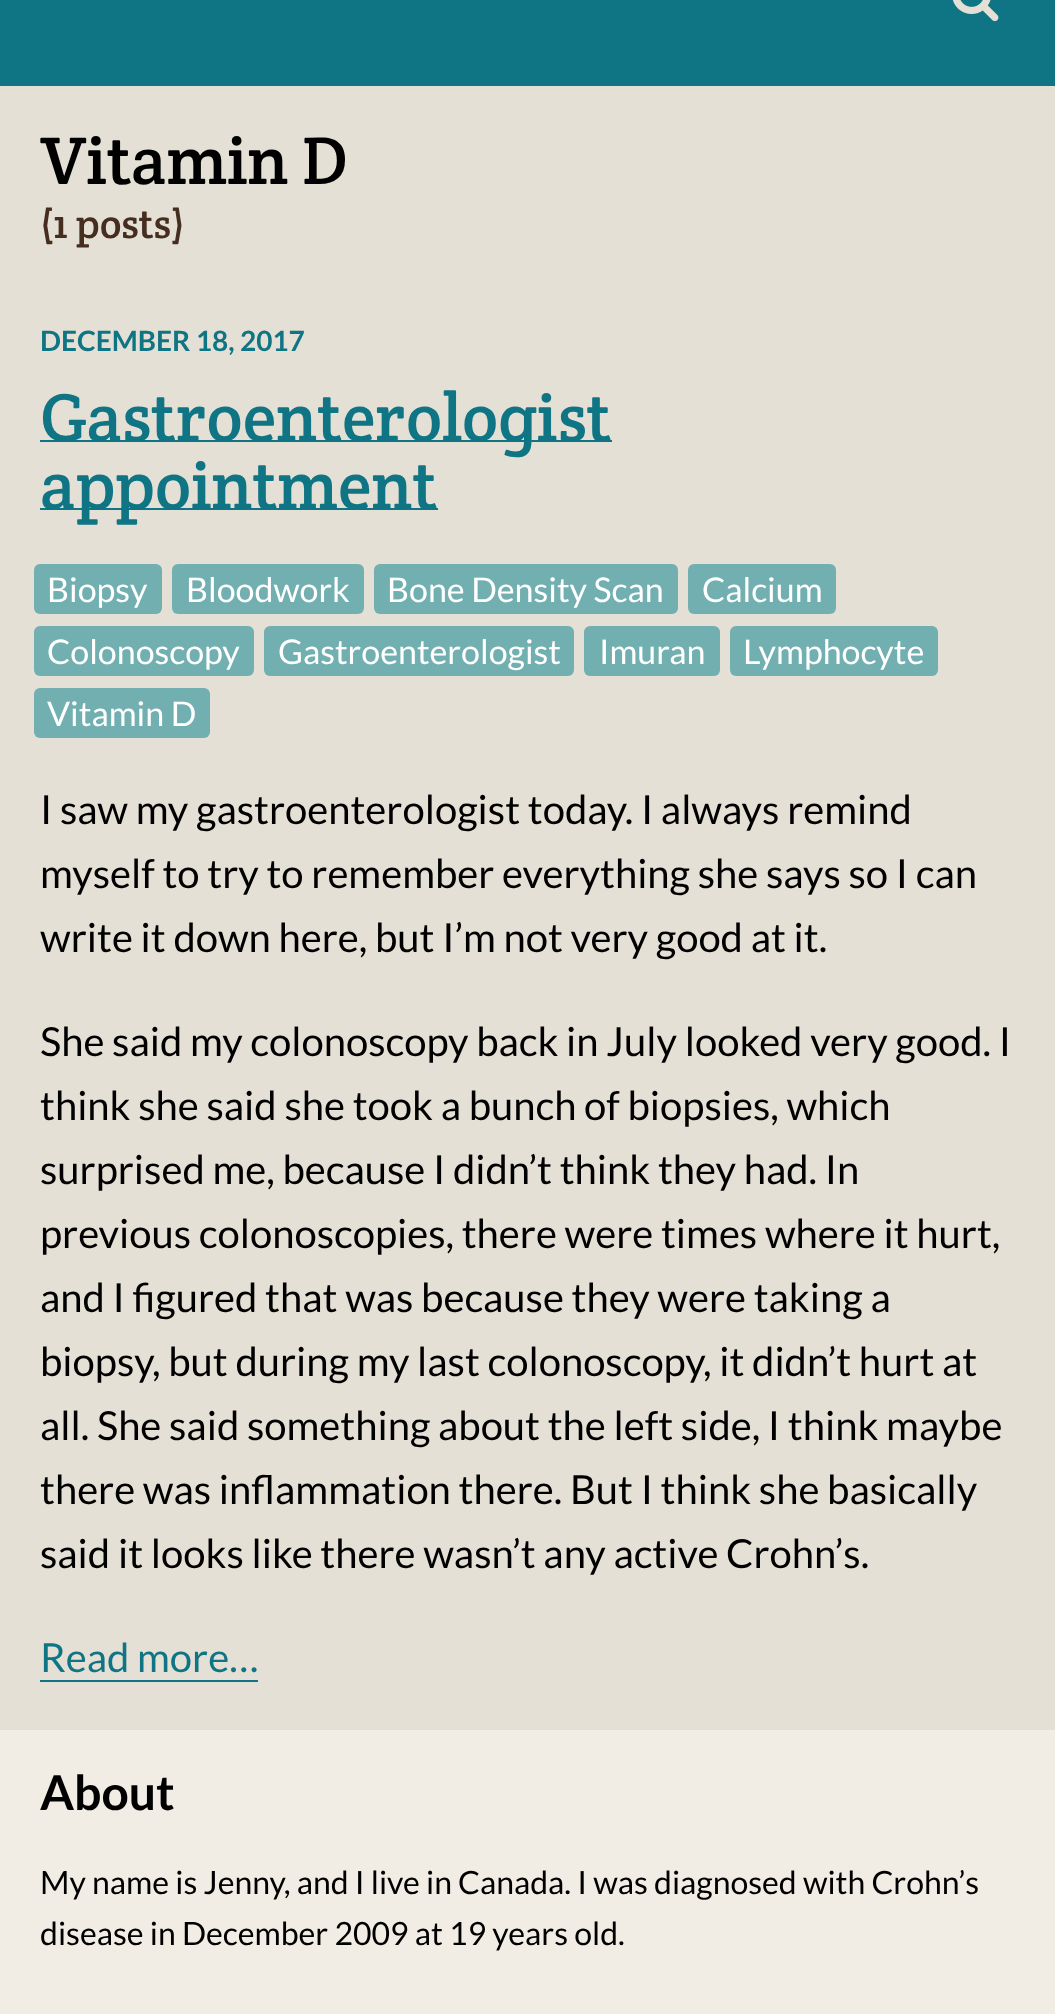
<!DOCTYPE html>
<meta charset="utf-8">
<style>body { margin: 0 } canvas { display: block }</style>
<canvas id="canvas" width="1055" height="2014"></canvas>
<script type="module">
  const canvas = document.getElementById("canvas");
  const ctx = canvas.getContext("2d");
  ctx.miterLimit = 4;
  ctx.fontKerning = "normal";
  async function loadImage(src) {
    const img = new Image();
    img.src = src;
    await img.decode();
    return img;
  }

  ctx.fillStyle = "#e5e0d5";
  ctx.fillRect(0, 0, 1055, 2014);
  ctx.fillStyle = "#0f7584";
  ctx.fillRect(0, 0, 1055, 86);
  ctx.drawImage(await loadImage("img1.png"), 952, 0, 47, 22);
  ctx.font = "68px Crete Round";
  ctx.fillStyle = "#000000";
  ctx.fillText("Vitamin D", 40, 184);
  ctx.font = "41px Crete Round";
  ctx.fillStyle = "#452d20";
  ctx.fillText("(1 posts)", 40, 238);
  ctx.font = "bold 28px Lato";
  ctx.fillStyle = "#0f7584";
  ctx.fillText("DECEMBER 18, 2017", 40, 351);
  ctx.fillRect(40, 440, 572, 2);
  ctx.font = "68px Crete Round";
  ctx.fillText("Gastroenterologist", 40, 441);
  ctx.fillRect(40, 508, 398, 2);
  ctx.fillText("appointment", 40, 509);
  ctx.fillStyle = "#72afb1";
  ctx.beginPath();
  ctx.roundRect(34, 564, 128, 50, 6);
  ctx.fill();
  ctx.font = "34px Lato";
  ctx.fillStyle = "#ffffff";
  ctx.fillText("Biopsy", 47, 602);
  ctx.fillStyle = "#72afb1";
  ctx.beginPath();
  ctx.roundRect(172, 564, 192, 50, 6);
  ctx.fill();
  ctx.fillStyle = "#ffffff";
  ctx.fillText("Bloodwork", 186, 602);
  ctx.fillStyle = "#72afb1";
  ctx.beginPath();
  ctx.roundRect(374, 564, 304, 50, 6);
  ctx.fill();
  ctx.fillStyle = "#ffffff";
  ctx.fillText("Bone Density Scan", 387, 602);
  ctx.fillStyle = "#72afb1";
  ctx.beginPath();
  ctx.roundRect(688, 564, 148, 50, 6);
  ctx.fill();
  ctx.fillStyle = "#ffffff";
  ctx.fillText("Calcium", 702, 602);
  ctx.fillStyle = "#72afb1";
  ctx.beginPath();
  ctx.roundRect(34, 626, 220, 50, 6);
  ctx.fill();
  ctx.fillStyle = "#ffffff";
  ctx.fillText("Colonoscopy", 47, 664);
  ctx.fillStyle = "#72afb1";
  ctx.beginPath();
  ctx.roundRect(264, 626, 310, 50, 6);
  ctx.fill();
  ctx.fillStyle = "#ffffff";
  ctx.fillText("Gastroenterologist", 278, 664);
  ctx.fillStyle = "#72afb1";
  ctx.beginPath();
  ctx.roundRect(584, 626, 136, 50, 6);
  ctx.fill();
  ctx.fillStyle = "#ffffff";
  ctx.fillText("Imuran", 599, 664);
  ctx.fillStyle = "#72afb1";
  ctx.beginPath();
  ctx.roundRect(730, 626, 208, 50, 6);
  ctx.fill();
  ctx.fillStyle = "#ffffff";
  ctx.fillText("Lymphocyte", 743, 664);
  ctx.fillStyle = "#72afb1";
  ctx.beginPath();
  ctx.roundRect(34, 688, 176, 50, 6);
  ctx.fill();
  ctx.fillStyle = "#ffffff";
  ctx.fillText("Vitamin D", 47, 726);
  ctx.font = "40px Lato";
  ctx.fillStyle = "#000000";
  ctx.fillText("I saw my gastroenterologist today. I always remind", 40, 824);
  ctx.fillText("myself to try to remember everything she says so I can", 40, 888);
  ctx.fillText("write it down here, but I’m not very good at it.", 40, 952);
  ctx.fillText("She said my colonoscopy back in July looked very good. I", 40, 1056);
  ctx.fillText("think she said she took a bunch of biopsies, which", 40, 1120);
  ctx.fillText("surprised me, because I didn’t think they had. In", 40, 1184);
  ctx.fillText("previous colonoscopies, there were times where it hurt,", 40, 1248);
  ctx.fillText("and I figured that was because they were taking a", 40, 1312);
  ctx.fillText("biopsy, but during my last colonoscopy, it didn’t hurt at", 40, 1376);
  ctx.fillText("all. She said something about the left side, I think maybe", 40, 1440);
  ctx.fillText("there was inflammation there. But I think she basically", 40, 1504);
  ctx.fillText("said it looks like there wasn’t any active Crohn’s.", 40, 1568);
  ctx.fillStyle = "#0f7584";
  ctx.fillText("Read more…", 40, 1672);
  ctx.fillRect(40, 1680, 218, 2);
  ctx.fillStyle = "#f1ede4";
  ctx.fillRect(0, 1730, 1055, 284);
  ctx.font = "bold 48px Lato";
  ctx.fillStyle = "#000000";
  ctx.fillText("About", 40, 1810);
  ctx.font = "32px Lato";
  ctx.fillText("My name is Jenny, and I live in Canada. I was diagnosed with Crohn’s", 40, 1894);
  ctx.fillText("disease in December 2009 at 19 years old.", 40, 1945);
</script>
